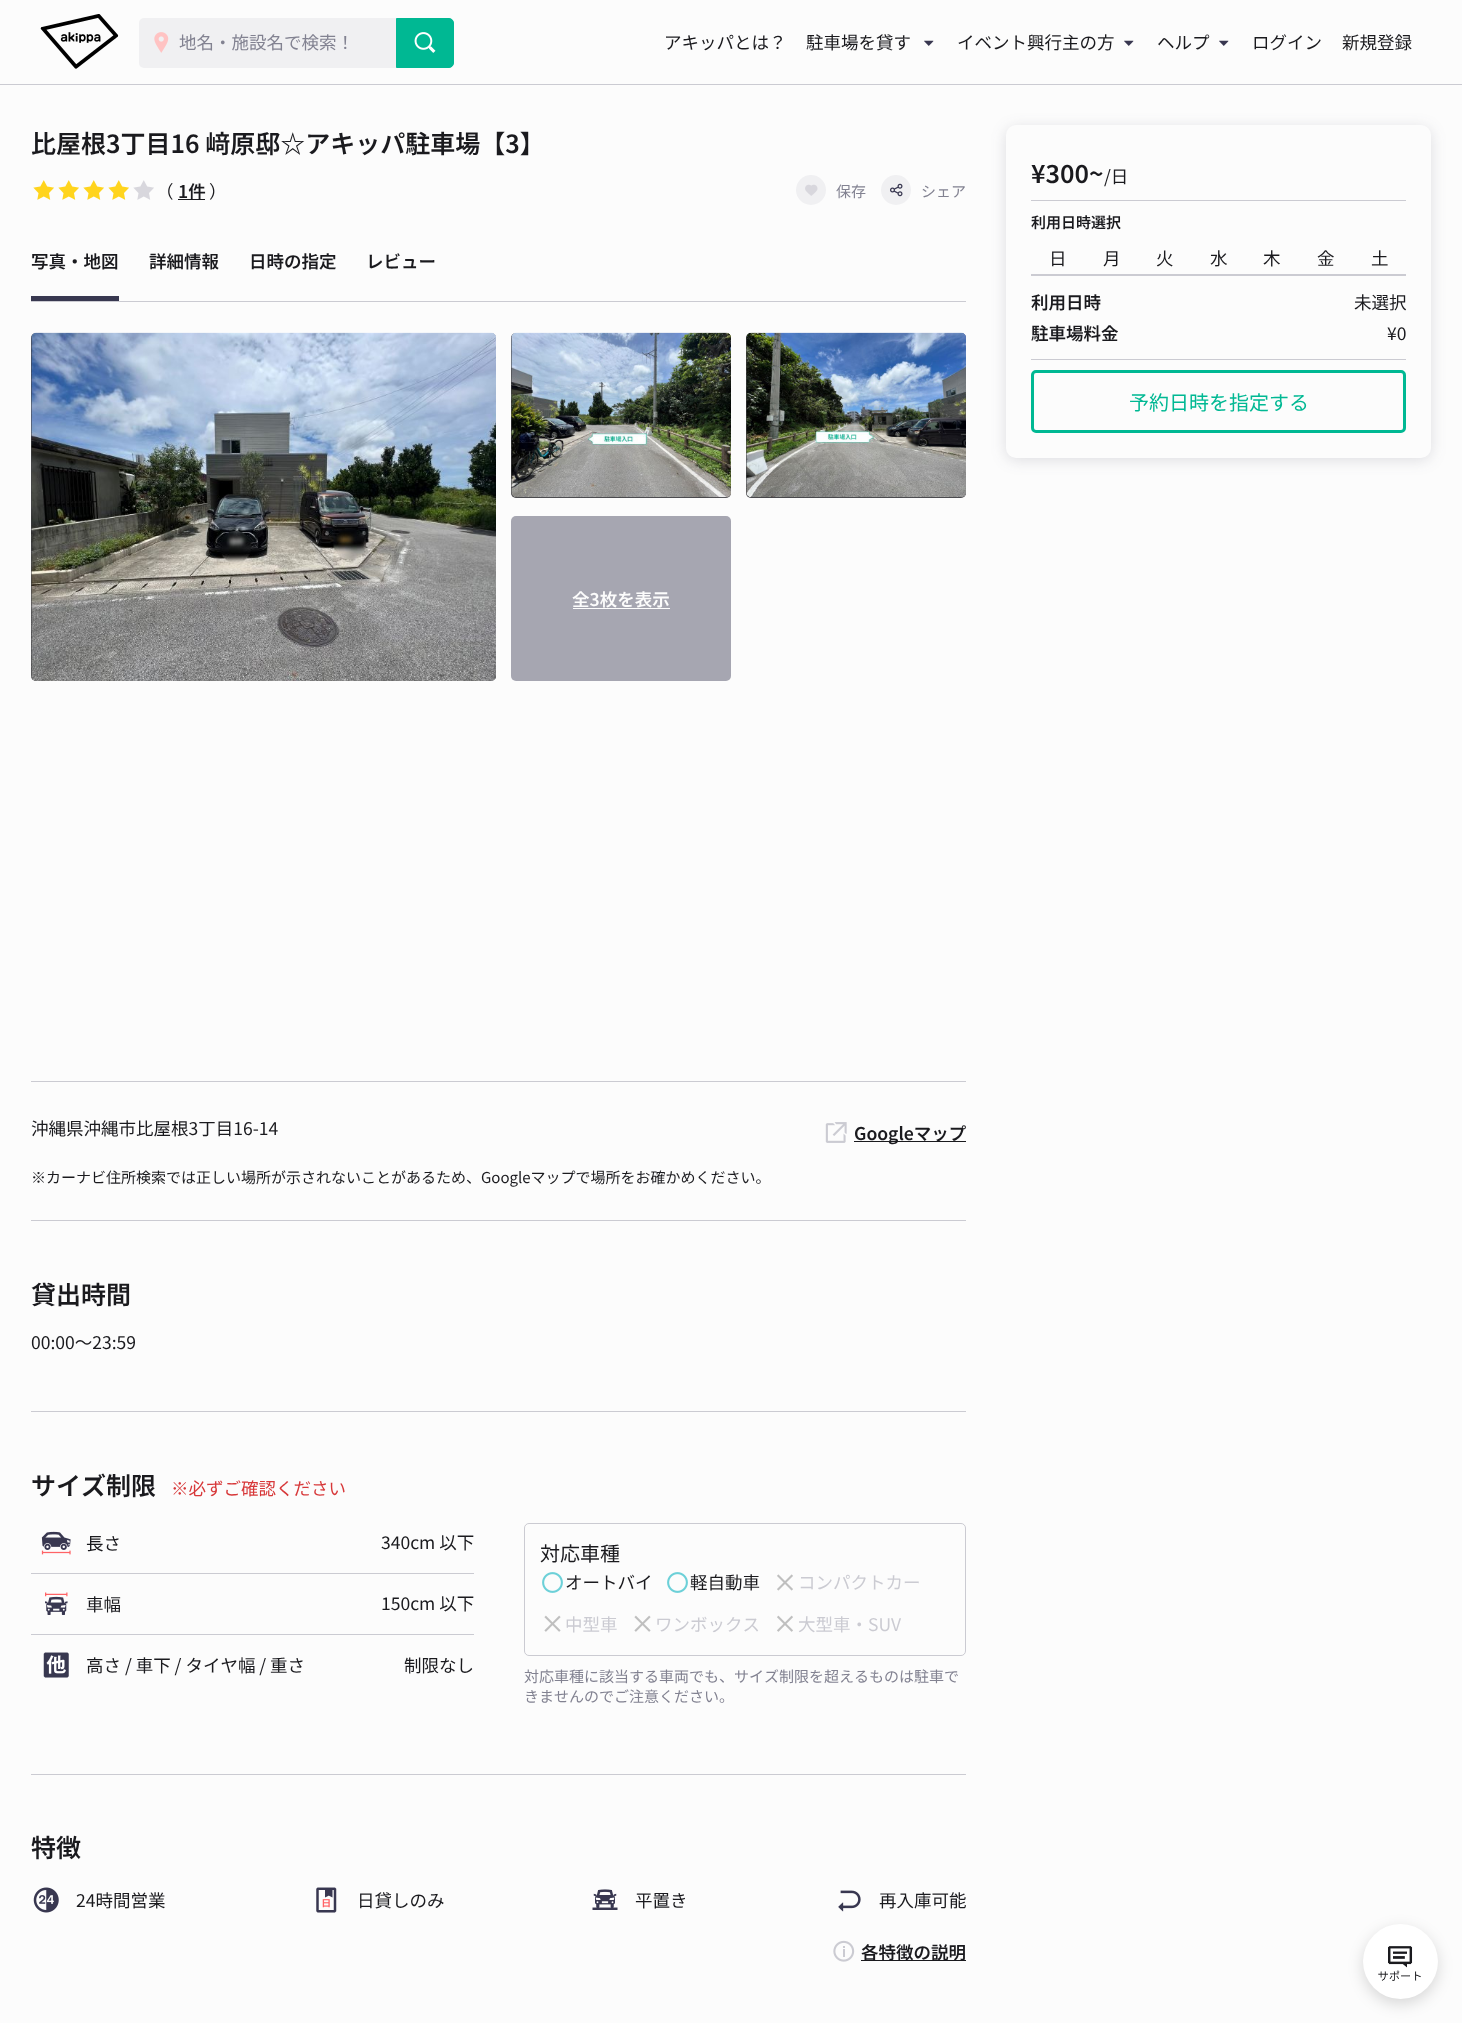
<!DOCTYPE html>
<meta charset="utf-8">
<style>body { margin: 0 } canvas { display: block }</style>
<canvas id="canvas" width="1462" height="2023"></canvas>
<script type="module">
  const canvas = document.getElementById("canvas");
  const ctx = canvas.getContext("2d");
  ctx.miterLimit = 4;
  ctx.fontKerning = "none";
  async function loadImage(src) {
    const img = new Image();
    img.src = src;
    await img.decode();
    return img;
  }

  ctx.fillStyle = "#fcfcfc";
  ctx.fillRect(0, 0, 1462, 2023);
  ctx.fillStyle = "#cbcbd2";
  ctx.fillRect(0, 84, 1462, 1);
  ctx.drawImage(await loadImage("img1.png"), 40, 14, 79, 55);
  ctx.fillStyle = "#f0f0f2";
  ctx.beginPath();
  ctx.roundRect(139, 18, 257, 50, [5, 0, 0, 5]);
  ctx.fill();
  ctx.drawImage(await loadImage("img2.png"), 154, 32, 15, 21);
  ctx.font = "17.5px Noto Sans JP";
  ctx.fillStyle = "#828291";
  ctx.fillText("地名・施設名で検索！", 179, 49);
  ctx.fillStyle = "#00b893";
  ctx.beginPath();
  ctx.roundRect(396.5, 18.5, 57, 49, [0, 4.5, 4.5, 0]);
  ctx.fill();
  ctx.strokeStyle = "#00b893";
  ctx.stroke();
  ctx.drawImage(await loadImage("img3.png"), 414, 32, 22, 21);
  ctx.fillStyle = "#1a1a1e";
  ctx.fillText("アキッパとは？", 664, 49);
  ctx.fillText("駐車場を貸す", 806, 49);
  ctx.drawImage(await loadImage("img4.png"), 924, 40, 10, 6);
  ctx.fillText("イベント興行主の方", 957, 49);
  ctx.drawImage(await loadImage("img4.png"), 1124, 40, 10, 6);
  ctx.fillText("ヘルプ", 1157, 49);
  ctx.drawImage(await loadImage("img4.png"), 1219, 40, 10, 6);
  ctx.fillText("ログイン", 1252, 49);
  ctx.fillText("新規登録", 1342, 49);
  ctx.font = "600 25px Noto Sans JP";
  ctx.fillText("比屋根3丁目16 﨑原邸☆アキッパ駐車場【3】", 31, 153);
  ctx.drawImage(await loadImage("img5.png"), 33, 180, 121, 20);
  ctx.font = "17.5px Noto Sans JP";
  ctx.fillText("（", 156, 198);
  ctx.fillRect(178, 199, 27, 1);
  ctx.font = "600 17.5px Noto Sans JP";
  ctx.fillText("1件", 178, 198);
  ctx.font = "17.5px Noto Sans JP";
  ctx.fillText("）", 209, 198);
  ctx.fillStyle = "#f0f0f2";
  ctx.beginPath();
  ctx.arc(811, 190, 15, 0, Math.PI * 2);
  ctx.fill();
  ctx.drawImage(await loadImage("img6.png"), 805, 184, 13, 12);
  ctx.font = "15px Noto Sans JP";
  ctx.fillStyle = "#828291";
  ctx.fillText("保存", 836, 197);
  ctx.fillStyle = "#f0f0f2";
  ctx.beginPath();
  ctx.arc(896, 190, 15, 0, Math.PI * 2);
  ctx.fill();
  ctx.drawImage(await loadImage("img7.png"), 890, 183, 13, 14);
  ctx.fillStyle = "#828291";
  ctx.fillText("シェア", 921, 197);
  ctx.fillStyle = "#cbcbd2";
  ctx.fillRect(31, 301, 935, 1);
  ctx.fillStyle = "#383850";
  ctx.fillRect(31, 296, 88, 5);
  ctx.font = "600 17.5px Noto Sans JP";
  ctx.fillStyle = "#1a1a1e";
  ctx.fillText("写真・地図", 31, 268);
  ctx.fillText("詳細情報", 149, 268);
  ctx.fillText("日時の指定", 249, 268);
  ctx.fillText("レビュー", 366, 268);
  ctx.fillStyle = "#414145";
  ctx.beginPath();
  ctx.roundRect(31, 333, 465, 348, 5);
  ctx.fill();
  ctx.drawImage(await loadImage("img8.png"), 31, 332, 465, 349);
  ctx.beginPath();
  ctx.roundRect(511, 333, 220, 165, 5);
  ctx.fill();
  ctx.drawImage(await loadImage("img9.png"), 511, 332, 220, 166);
  ctx.beginPath();
  ctx.roundRect(746, 333, 220, 165, 5);
  ctx.fill();
  ctx.drawImage(await loadImage("img10.png"), 746, 332, 220, 166);
  ctx.fillStyle = "#a6a6b1";
  ctx.beginPath();
  ctx.roundRect(511, 516, 220, 165, 5);
  ctx.fill();
  ctx.fillStyle = "#fcfcfc";
  ctx.fillText("全3枚を表示", 572, 606);
  ctx.fillRect(573, 608, 97, 1);
  ctx.fillStyle = "#cbcbd2";
  ctx.fillRect(31, 1081, 935, 1);
  ctx.font = "17.5px Noto Sans JP";
  ctx.fillStyle = "#1a1a1e";
  ctx.fillText("沖縄県沖縄市比屋根3丁目16-14", 31, 1135);
  ctx.drawImage(await loadImage("img11.png"), 825, 1122, 22, 21);
  ctx.fillRect(854, 1141, 112, 1);
  ctx.font = "600 17.5px Noto Sans JP";
  ctx.fillText("Googleマップ", 854, 1140);
  ctx.font = "15px Noto Sans JP";
  ctx.fillText("※カーナビ住所検索では正しい場所が示されないことがあるため、Googleマップで場所をお確かめください。", 31, 1183);
  ctx.fillStyle = "#cbcbd2";
  ctx.fillRect(31, 1220, 935, 1);
  ctx.font = "600 25px Noto Sans JP";
  ctx.fillStyle = "#1a1a1e";
  ctx.fillText("貸出時間", 31, 1304);
  ctx.font = "17.5px Noto Sans JP";
  ctx.fillText("00:00〜23:59", 31, 1349);
  ctx.fillStyle = "#cbcbd2";
  ctx.fillRect(31, 1411, 935, 1);
  ctx.font = "600 25px Noto Sans JP";
  ctx.fillStyle = "#1a1a1e";
  ctx.fillText("サイズ制限", 31, 1495);
  ctx.font = "17.5px Noto Sans JP";
  ctx.fillStyle = "#d73839";
  ctx.fillText("※必ずご確認ください", 171, 1495);
  ctx.fillStyle = "#cbcbd2";
  ctx.fillRect(31, 1573, 443, 1);
  ctx.drawImage(await loadImage("img12.png"), 41, 1531, 30, 24);
  ctx.fillStyle = "#1a1a1e";
  ctx.fillText("長さ", 86, 1550);
  ctx.fillText("340cm 以下", 381, 1549);
  ctx.fillStyle = "#cbcbd2";
  ctx.fillRect(31, 1634, 443, 1);
  ctx.drawImage(await loadImage("img13.png"), 45, 1592, 23, 23);
  ctx.fillStyle = "#1a1a1e";
  ctx.fillText("車幅", 86, 1611);
  ctx.fillText("150cm 以下", 381, 1610);
  ctx.drawImage(await loadImage("img14.png"), 43, 1652, 26, 26);
  ctx.fillText("高さ / 車下 / タイヤ幅 / 重さ", 86, 1672);
  ctx.fillText("制限なし", 404, 1672);
  ctx.beginPath();
  ctx.roundRect(524.5, 1523.5, 441, 132, 4.5);
  ctx.strokeStyle = "#cbcbd2";
  ctx.stroke();
  ctx.font = "20px Noto Sans JP";
  ctx.fillText("対応車種", 540, 1561);
  ctx.drawImage(await loadImage("img15.png"), 542, 1572, 21, 21);
  ctx.font = "17.5px Noto Sans JP";
  ctx.fillText("オートバイ", 565, 1589);
  ctx.drawImage(await loadImage("img15.png"), 667, 1572, 21, 21);
  ctx.fillText("軽自動車", 690, 1589);
  ctx.drawImage(await loadImage("img16.png"), 777, 1574, 16, 17);
  ctx.fillStyle = "#cbcbd2";
  ctx.fillText("コンパクトカー", 798, 1589);
  ctx.drawImage(await loadImage("img17.png"), 544, 1615, 17, 17);
  ctx.fillText("中型車", 565, 1631);
  ctx.drawImage(await loadImage("img17.png"), 634, 1615, 17, 17);
  ctx.fillText("ワンボックス", 655, 1631);
  ctx.drawImage(await loadImage("img18.png"), 777, 1615, 16, 17);
  ctx.fillText("大型車・SUV", 798, 1631);
  ctx.font = "15px Noto Sans JP";
  ctx.fillStyle = "#828291";
  ctx.fillText("対応車種に該当する車両でも、サイズ制限を超えるものは駐車で", 524, 1682);
  ctx.fillText("きませんのでご注意ください。", 524, 1702);
  ctx.fillStyle = "#cbcbd2";
  ctx.fillRect(31, 1774, 935, 1);
  ctx.font = "600 25px Noto Sans JP";
  ctx.fillStyle = "#1a1a1e";
  ctx.fillText("特徴", 31, 1857);
  ctx.drawImage(await loadImage("img19.png"), 33, 1887, 26, 26);
  ctx.font = "17.5px Noto Sans JP";
  ctx.fillText("24時間営業", 76, 1907);
  ctx.drawImage(await loadImage("img20.png"), 316, 1887, 21, 26);
  ctx.fillText("日貸しのみ", 357, 1907);
  ctx.drawImage(await loadImage("img21.png"), 592, 1889, 26, 21);
  ctx.fillText("平置き", 635, 1907);
  ctx.drawImage(await loadImage("img22.png"), 838, 1890, 23, 22);
  ctx.fillText("再入庫可能", 879, 1907);
  ctx.drawImage(await loadImage("img23.png"), 833, 1940, 22, 22);
  ctx.fillRect(861, 1960, 105, 1);
  ctx.font = "600 17.5px Noto Sans JP";
  ctx.fillText("各特徴の説明", 861, 1959);
  ctx.fillStyle = "rgba(56, 56, 80, 0.16)";
  ctx.filter = "blur(7.5px)";
  ctx.beginPath();
  ctx.roundRect(1006, 128, 425, 332, 10);
  ctx.fill();
  ctx.filter = "none";
  ctx.fillStyle = "#fcfcfc";
  ctx.beginPath();
  ctx.roundRect(1006, 125, 425, 333, 10);
  ctx.fill();
  ctx.fillStyle = "#cbcbd2";
  ctx.fillRect(1031, 200, 375, 1);
  ctx.font = "600 25px Noto Sans JP";
  ctx.fillStyle = "#1a1a1e";
  ctx.fillText("¥300~", 1031, 183);
  ctx.font = "17.5px Noto Sans JP";
  ctx.fillText("/日", 1104, 183);
  ctx.font = "600 15px Noto Sans JP";
  ctx.fillText("利用日時選択", 1031, 228);
  ctx.fillStyle = "#cbcbd2";
  ctx.fillRect(1031, 274, 375, 2);
  ctx.font = "17.5px Noto Sans JP";
  ctx.fillStyle = "#1a1a1e";
  ctx.fillText("日", 1049, 265);
  ctx.fillText("月", 1103, 265);
  ctx.fillText("火", 1156, 265);
  ctx.fillText("水", 1210, 265);
  ctx.fillText("木", 1263, 265);
  ctx.fillText("金", 1317, 265);
  ctx.fillText("土", 1371, 265);
  ctx.fillStyle = "#cbcbd2";
  ctx.fillRect(1031, 359, 375, 1);
  ctx.font = "600 17.5px Noto Sans JP";
  ctx.fillStyle = "#1a1a1e";
  ctx.fillText("利用日時", 1031, 309);
  ctx.font = "17.5px Noto Sans JP";
  ctx.fillText("未選択", 1354, 309);
  ctx.font = "600 17.5px Noto Sans JP";
  ctx.fillText("駐車場料金", 1031, 340);
  ctx.font = "17.5px Noto Sans JP";
  ctx.fillText("¥0", 1387, 340);
  ctx.beginPath();
  ctx.roundRect(1032.5, 371.5, 372, 60, 3.5);
  ctx.strokeStyle = "#00b893";
  ctx.lineWidth = 3;
  ctx.stroke();
  ctx.font = "20px Noto Sans JP";
  ctx.fillStyle = "#00b893";
  ctx.fillText("予約日時を指定する", 1129, 410);
  ctx.fillStyle = "rgba(0, 0, 0, 0.15)";
  ctx.filter = "blur(7.5px)";
  ctx.beginPath();
  ctx.roundRect(1363, 1929, 75, 75, 37.5);
  ctx.fill();
  ctx.filter = "none";
  ctx.fillStyle = "#ffffff";
  ctx.beginPath();
  ctx.arc(1400.5, 1961.5, 37.5, 0, Math.PI * 2);
  ctx.fill();
  ctx.drawImage(await loadImage("img24.png"), 1378, 1946, 43, 35);
</script>
